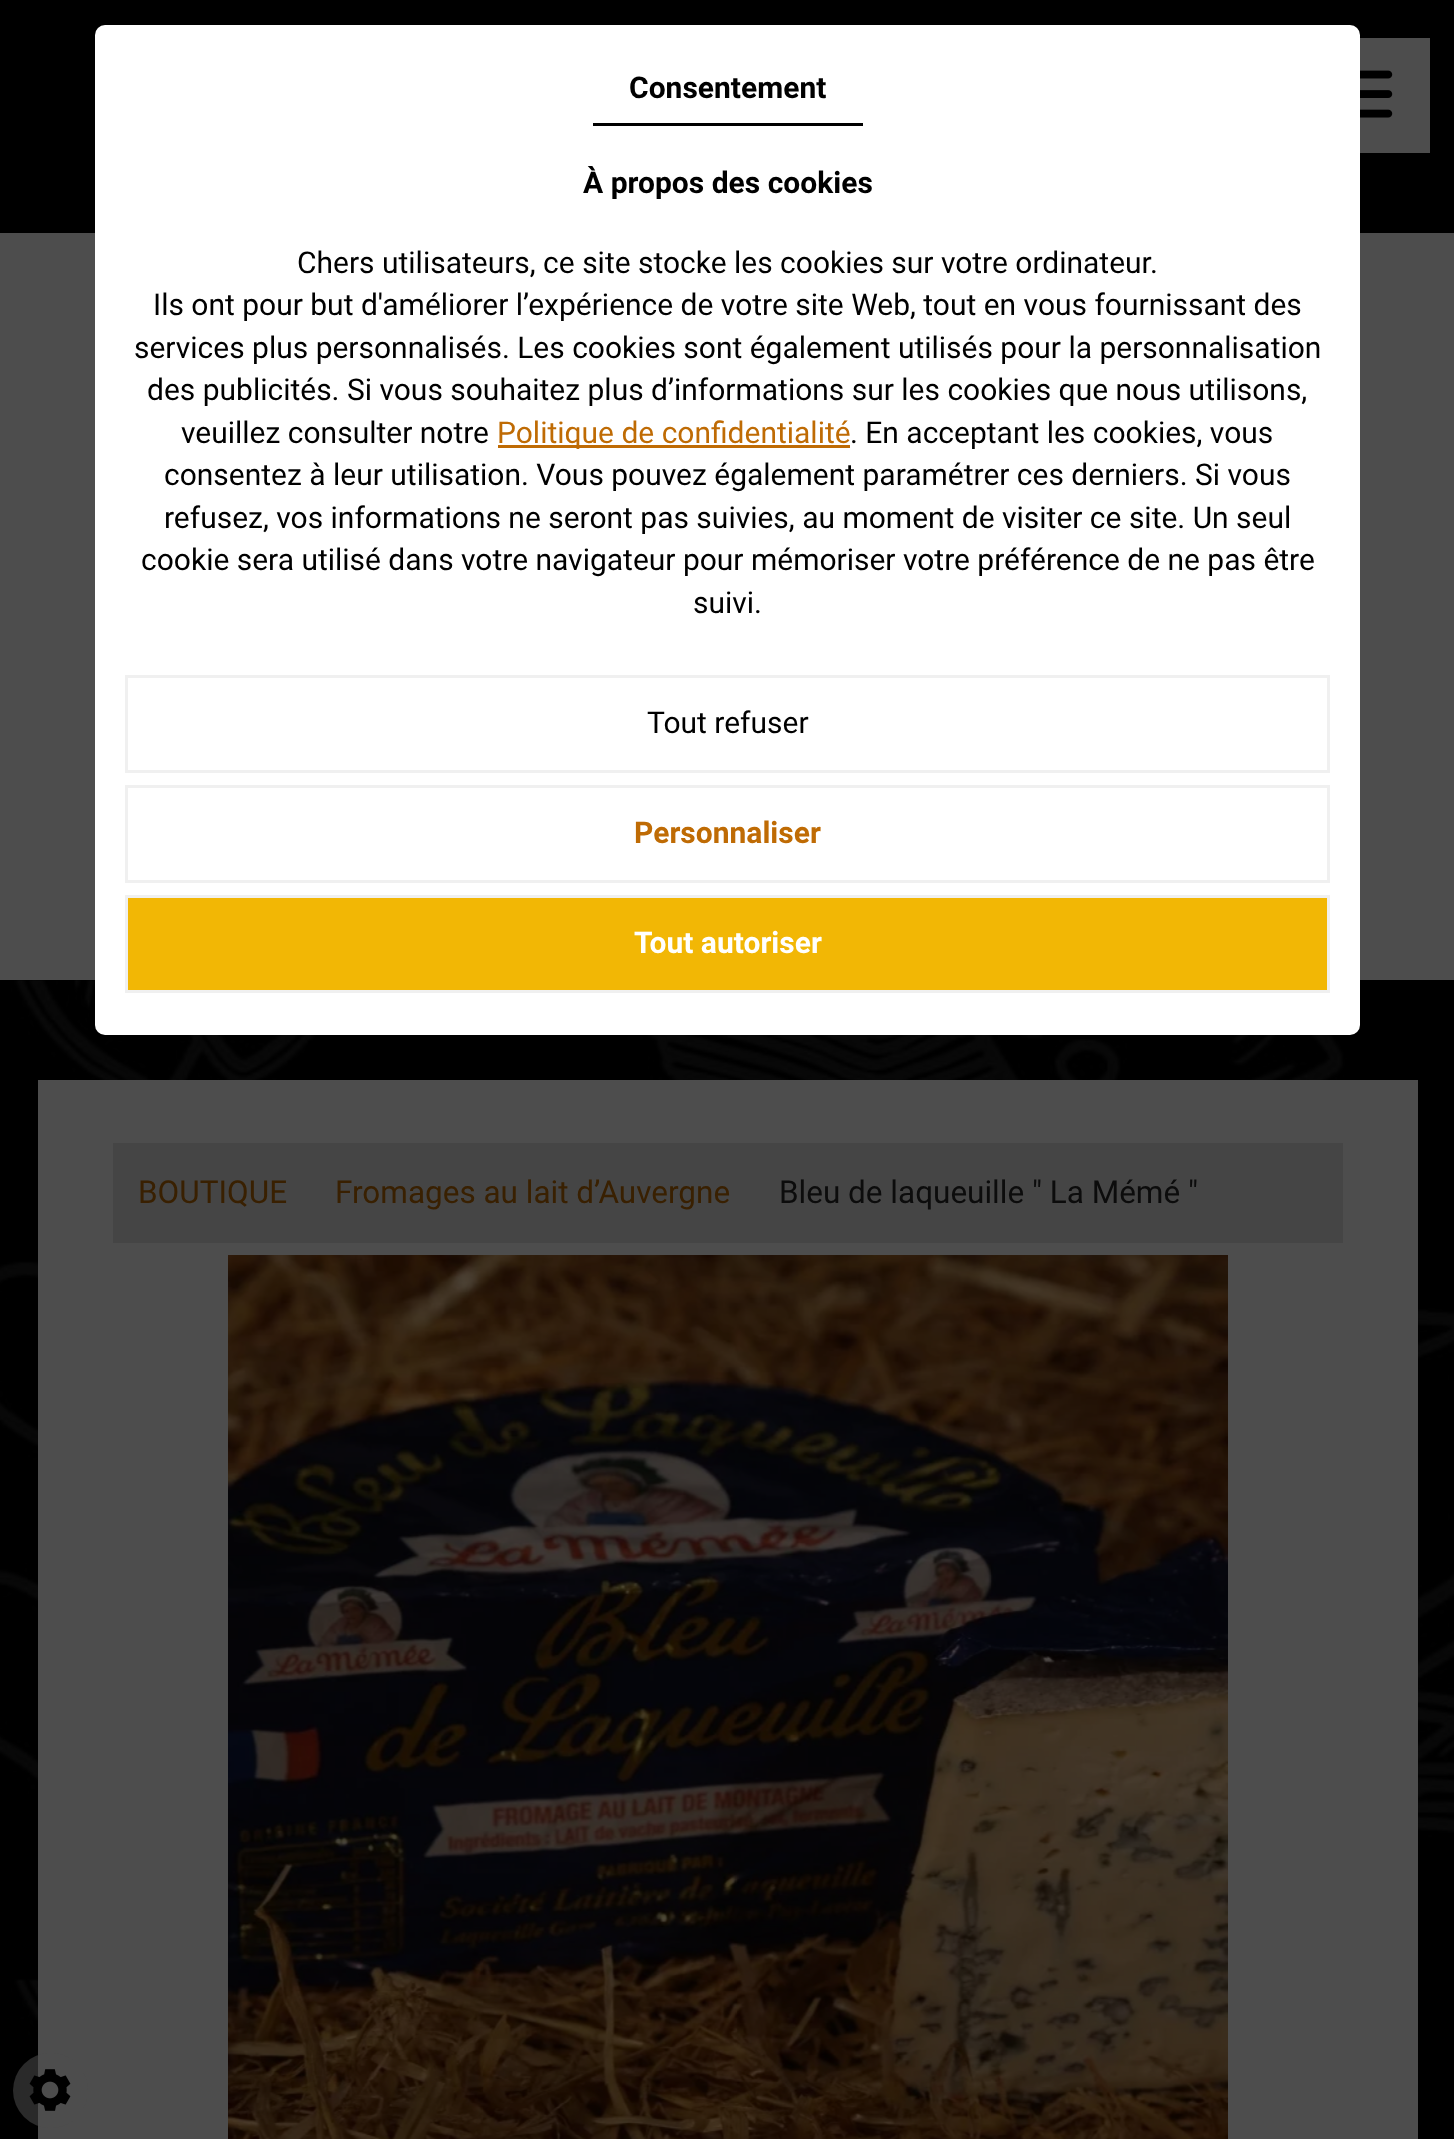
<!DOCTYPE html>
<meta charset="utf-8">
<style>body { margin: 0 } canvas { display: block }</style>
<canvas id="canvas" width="1454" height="2139"></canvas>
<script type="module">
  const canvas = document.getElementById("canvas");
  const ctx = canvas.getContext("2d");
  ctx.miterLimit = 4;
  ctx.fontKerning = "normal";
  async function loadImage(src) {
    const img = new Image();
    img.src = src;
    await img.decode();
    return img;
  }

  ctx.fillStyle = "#4d4d4d";
  ctx.fillRect(0, 0, 1454, 2139);
  ctx.fillStyle = "#000000";
  ctx.fillRect(0, 0, 1454, 233);
  ctx.fillStyle = "#4d4d4d";
  ctx.fillRect(1360, 38, 70, 115);
  ctx.drawImage(await loadImage("img1.png"), 1360, 70, 33, 48);
  ctx.drawImage(await loadImage("img3.png"), 0, 980, 1454, 1159);
  ctx.fillStyle = "#ffffff";
  ctx.beginPath();
  ctx.roundRect(95, 25, 1265, 1010, 10);
  ctx.fill();
  ctx.fillStyle = "#000000";
  ctx.fillRect(593, 123, 270, 3);
  ctx.font = "bold 30px Roboto";
  ctx.fillText("Consentement", 629, 98);
  ctx.fillText("À propos des cookies", 583, 193);
  ctx.font = "30px Roboto";
  ctx.fillText("Chers utilisateurs, ce site stocke les cookies sur votre ordinateur.", 297, 273);
  ctx.fillText("Ils ont pour but d'améliorer l’expérience de votre site Web, tout en vous fournissant des", 153, 315);
  ctx.fillText("services plus personnalisés. Les cookies sont également utilisés pour la personnalisation", 134, 358);
  ctx.fillText("des publicités. Si vous souhaitez plus d’informations sur les cookies que nous utilisons,", 147, 400);
  ctx.fillText("veuillez consulter notre", 181, 443);
  ctx.fillStyle = "#bf6b04";
  ctx.fillRect(498, 445, 352, 3);
  ctx.fillText("Politique de confidentialité", 497, 443);
  ctx.fillStyle = "#000000";
  ctx.fillText(". En acceptant les cookies, vous", 850, 443);
  ctx.fillText("consentez à leur utilisation. Vous pouvez également paramétrer ces derniers. Si vous", 164, 485);
  ctx.fillText("refusez, vos informations ne seront pas suivies, au moment de visiter ce site. Un seul", 164, 528);
  ctx.fillText("cookie sera utilisé dans votre navigateur pour mémoriser votre préférence de ne pas être", 141, 570);
  ctx.fillText("suivi.", 693, 613);
  ctx.strokeStyle = "#f0f0f0";
  ctx.lineWidth = 3;
  ctx.strokeRect(126.5, 676.5, 1202, 95);
  ctx.fillText("Tout refuser", 647, 733);
  ctx.strokeRect(126.5, 786.5, 1202, 95);
  ctx.font = "bold 30px Roboto";
  ctx.fillStyle = "#bf6b04";
  ctx.fillText("Personnaliser", 634, 843);
  ctx.fillStyle = "#f2b705";
  ctx.beginPath();
  ctx.rect(126.5, 896.5, 1202, 95);
  ctx.fill();
  ctx.stroke();
  ctx.fillStyle = "#ffffff";
  ctx.fillText("Tout autoriser", 634, 953);
  ctx.fillStyle = "#4d4d4d";
  ctx.fillRect(38, 1080, 1380, 1059);
  ctx.fillStyle = "rgba(77, 77, 77, 0.54)";
  ctx.beginPath();
  ctx.arc(50.5, 2090.5, 37.5, 0, Math.PI * 2);
  ctx.fill();
  ctx.drawImage(await loadImage("img2.png"), 29, 2069, 42, 42);
  ctx.fillStyle = "#454545";
  ctx.fillRect(113, 1143, 1230, 100);
  ctx.font = "31.5px Roboto";
  ctx.fillStyle = "#392001";
  ctx.fillText("BOUTIQUE", 138, 1203);
  ctx.fillText("Fromages au lait d’Auvergne", 335, 1203);
  ctx.fillStyle = "#0c0c0c";
  ctx.fillText("Bleu de laqueuille \" La Mémé \"", 779, 1203);
  ctx.drawImage(await loadImage("img4.png"), 228, 1255, 1000, 884);
</script>
